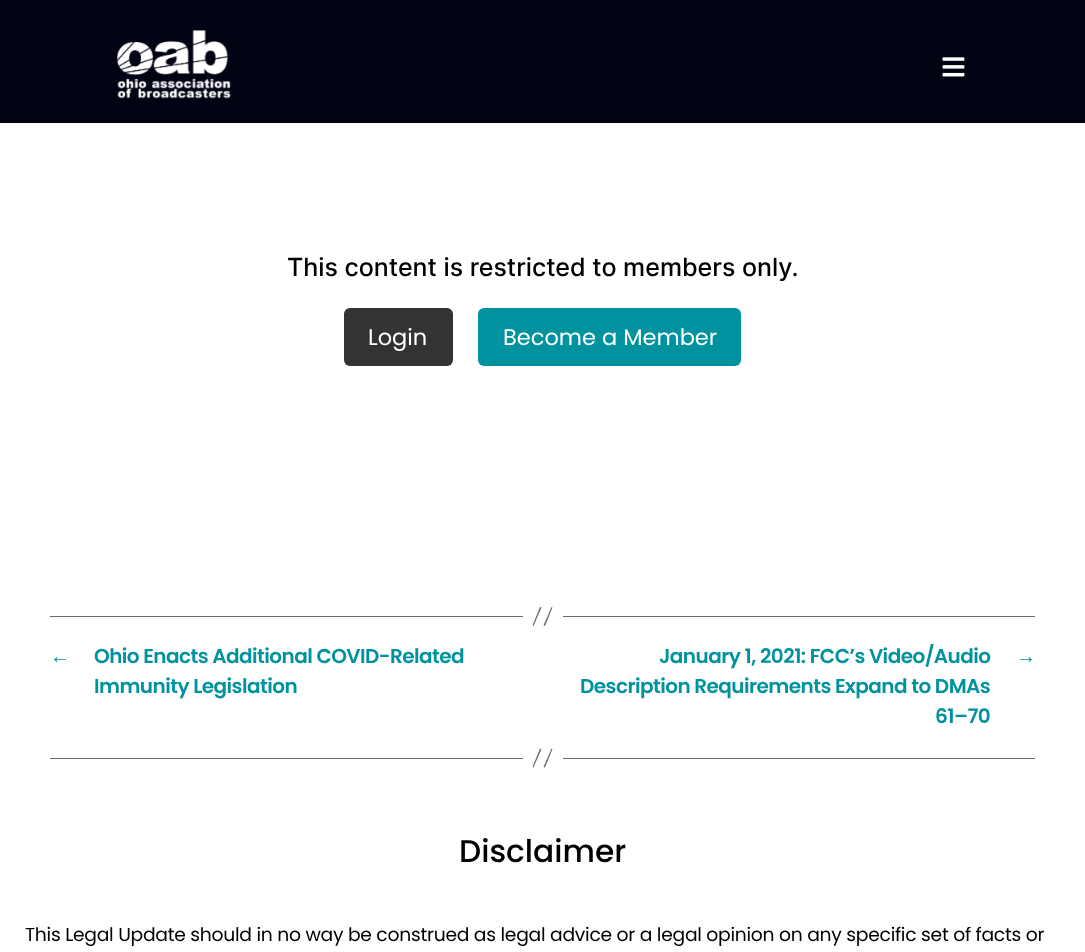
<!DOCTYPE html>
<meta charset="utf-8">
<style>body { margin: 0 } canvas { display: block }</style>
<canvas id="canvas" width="1085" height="952"></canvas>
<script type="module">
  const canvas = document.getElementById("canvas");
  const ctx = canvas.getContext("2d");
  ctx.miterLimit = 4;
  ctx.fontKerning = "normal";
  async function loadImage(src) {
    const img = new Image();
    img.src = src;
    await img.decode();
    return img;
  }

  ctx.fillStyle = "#ffffff";
  ctx.fillRect(0, 0, 1085, 952);
  ctx.fillStyle = "#010312";
  ctx.fillRect(0, 0, 1085, 123);
  ctx.drawImage(await loadImage("img1.png"), 117, 30, 114, 69);
  ctx.drawImage(await loadImage("img2.png"), 942, 57, 23, 20);
  ctx.font = "500 25px Inter";
  ctx.fillStyle = "#000000";
  ctx.fillText("This content is restricted to members only.", 287, 276);
  ctx.fillStyle = "#333333";
  ctx.beginPath();
  ctx.roundRect(344, 308, 109, 58, 6);
  ctx.fill();
  ctx.font = "22.5px Poppins";
  ctx.fillStyle = "#ffffff";
  ctx.fillText("Login", 368, 345);
  ctx.fillStyle = "#00929f";
  ctx.beginPath();
  ctx.roundRect(478, 308, 263, 58, 6);
  ctx.fill();
  ctx.fillStyle = "#ffffff";
  ctx.fillText("Become a Member", 503, 345);
  ctx.fillStyle = "#6d6d6d";
  ctx.fillRect(563, 616, 472, 1);
  ctx.fillRect(50, 616, 473, 1);
  ctx.beginPath();
  ctx.moveTo(540, 607);
  ctx.lineTo(541.5, 607.5);
  ctx.lineTo(533.5, 626);
  ctx.lineTo(532.5, 625.5);
  ctx.closePath();
  ctx.moveTo(551.5, 607);
  ctx.lineTo(552.5, 607.5);
  ctx.lineTo(545, 626);
  ctx.lineTo(543.5, 625.5);
  ctx.closePath();
  ctx.fill();
  ctx.letterSpacing = "-0.55px";
  ctx.font = "bold 20px Liberation Serif";
  ctx.fillStyle = "#00929f";
  ctx.fillText("←", 50, 663);
  ctx.font = "600 20px Poppins";
  ctx.fillText("Ohio Enacts Additional COVID-Related", 94, 663);
  ctx.fillText("Immunity Legislation", 94, 693);
  ctx.fillText("January 1, 2021: FCC’s Video/Audio", 659, 663);
  ctx.fillText("Description Requirements Expand to DMAs", 580, 693);
  ctx.fillText("61–70", 935, 723);
  ctx.font = "bold 20px Liberation Serif";
  ctx.fillText("→", 1016, 663);
  ctx.fillStyle = "#6d6d6d";
  ctx.fillRect(563, 758, 472, 1);
  ctx.fillRect(50, 758, 473, 1);
  ctx.beginPath();
  ctx.moveTo(540, 748.5);
  ctx.lineTo(541.5, 749);
  ctx.lineTo(533.5, 767.5);
  ctx.lineTo(532.5, 767);
  ctx.closePath();
  ctx.moveTo(551.5, 748.5);
  ctx.lineTo(552.5, 749);
  ctx.lineTo(545, 767.5);
  ctx.lineTo(543.5, 767);
  ctx.closePath();
  ctx.fill();
  ctx.letterSpacing = "0px";
  ctx.font = "500 31.25px Poppins";
  ctx.fillStyle = "#000000";
  ctx.fillText("Disclaimer", 459, 862);
  ctx.letterSpacing = "-0.28px";
  ctx.font = "18.75px Poppins";
  ctx.fillText("This Legal Update should in no way be construed as legal advice or a legal opinion on any specific set of facts or", 25, 941);
</script>
